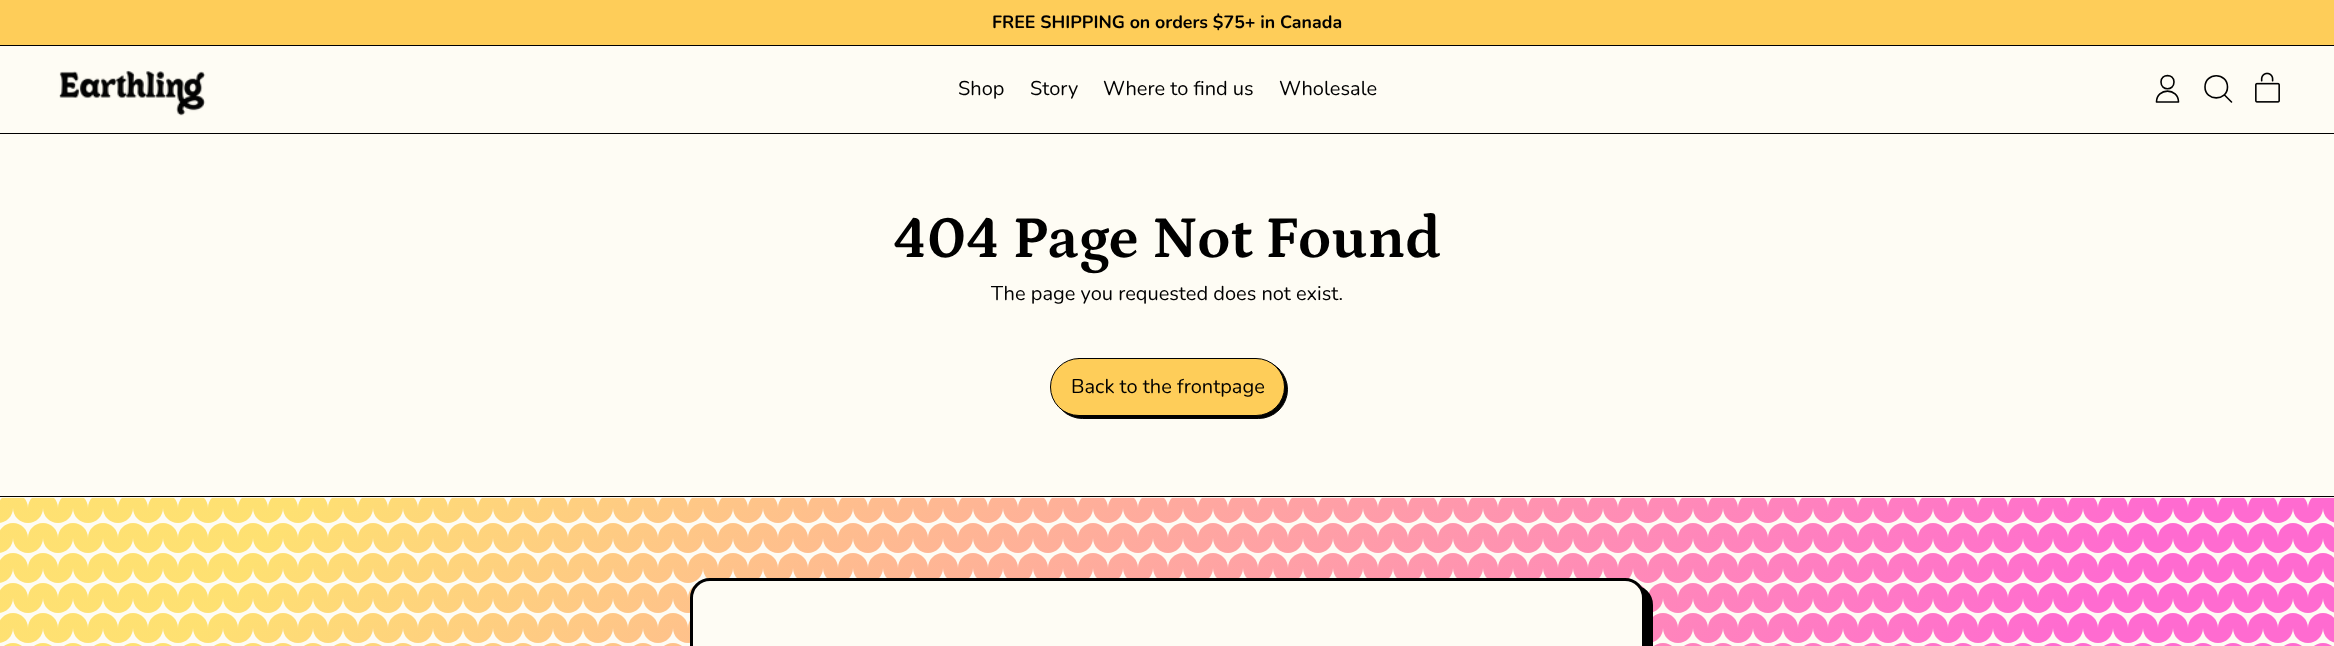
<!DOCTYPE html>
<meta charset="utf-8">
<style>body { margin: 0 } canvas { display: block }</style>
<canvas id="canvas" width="2334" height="646"></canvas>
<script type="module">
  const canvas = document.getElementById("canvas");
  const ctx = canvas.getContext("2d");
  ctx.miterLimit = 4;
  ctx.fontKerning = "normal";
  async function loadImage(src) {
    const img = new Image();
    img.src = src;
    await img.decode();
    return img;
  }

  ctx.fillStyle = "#fefcf4";
  ctx.fillRect(0, 0, 2334, 646);
  ctx.fillStyle = "#fecd59";
  ctx.fillRect(0, 0, 2334, 45);
  ctx.fillStyle = "#000000";
  ctx.fillRect(0, 45, 2334, 1);
  ctx.font = "bold 17.8px Nunito";
  ctx.fillText("FREE SHIPPING on orders $75+ in Canada", 992, 28);
  ctx.fillRect(0, 133, 2334, 1);
  ctx.drawImage(await loadImage("img1.png"), 59, 70, 147, 46);
  ctx.font = "20px Nunito";
  ctx.fillText("Shop", 958, 95);
  ctx.fillText("Story", 1030, 95);
  ctx.fillText("Where to find us", 1103, 95);
  ctx.fillText("Wholesale", 1279, 95);
  ctx.beginPath();
  ctx.moveTo(2161, 82);
  ctx.bezierCurveTo(2161, 91, 2174, 91, 2174, 82);
  ctx.bezierCurveTo(2174, 73.5, 2161, 73.5, 2161, 82);
  ctx.closePath();
  ctx.moveTo(2156.5, 102);
  ctx.bezierCurveTo(2156.5, 87.5, 2178.5, 87.5, 2178.5, 102);
  ctx.closePath();
  ctx.strokeStyle = "#000000";
  ctx.lineWidth = 1.6;
  ctx.lineCap = "round";
  ctx.lineJoin = "round";
  ctx.stroke();
  ctx.beginPath();
  ctx.moveTo(2205, 87);
  ctx.bezierCurveTo(2205, 101.5, 2227.5, 101.5, 2227.5, 87);
  ctx.bezierCurveTo(2227.5, 72, 2205, 72, 2205, 87);
  ctx.closePath();
  ctx.moveTo(2231.5, 102);
  ctx.lineTo(2225, 95.5);
  ctx.stroke();
  ctx.drawImage(await loadImage("img2.png"), 2255, 72, 25, 31);
  ctx.font = "bold 60px Petrona";
  ctx.fillText("404 Page Not Found", 894, 257);
  ctx.font = "20px Nunito";
  ctx.fillText("The page you requested does not exist.", 991, 300);
  ctx.beginPath();
  ctx.roundRect(1053.5, 360.5, 234, 58, 29);
  ctx.fill();
  ctx.lineWidth = 1;
  ctx.lineJoin = "miter";
  ctx.stroke();
  ctx.fillStyle = "#fecd59";
  ctx.beginPath();
  ctx.roundRect(1050.5, 358.5, 234, 57, 28.5);
  ctx.fill();
  ctx.stroke();
  ctx.fillStyle = "#000000";
  ctx.fillText("Back to the frontpage", 1071, 393);
  ctx.fillRect(0, 496, 2334, 1);
  ctx.drawImage(await loadImage("img3.png"), 0, 497, 2334, 149);
  ctx.beginPath();
  ctx.roundRect(699.5, 586.5, 952, 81, 18.5);
  ctx.fill();
  ctx.lineWidth = 3;
  ctx.stroke();
  ctx.fillStyle = "#fefcf4";
  ctx.beginPath();
  ctx.roundRect(691.5, 579.5, 952, 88, 18.5);
  ctx.fill();
  ctx.stroke();
</script>
